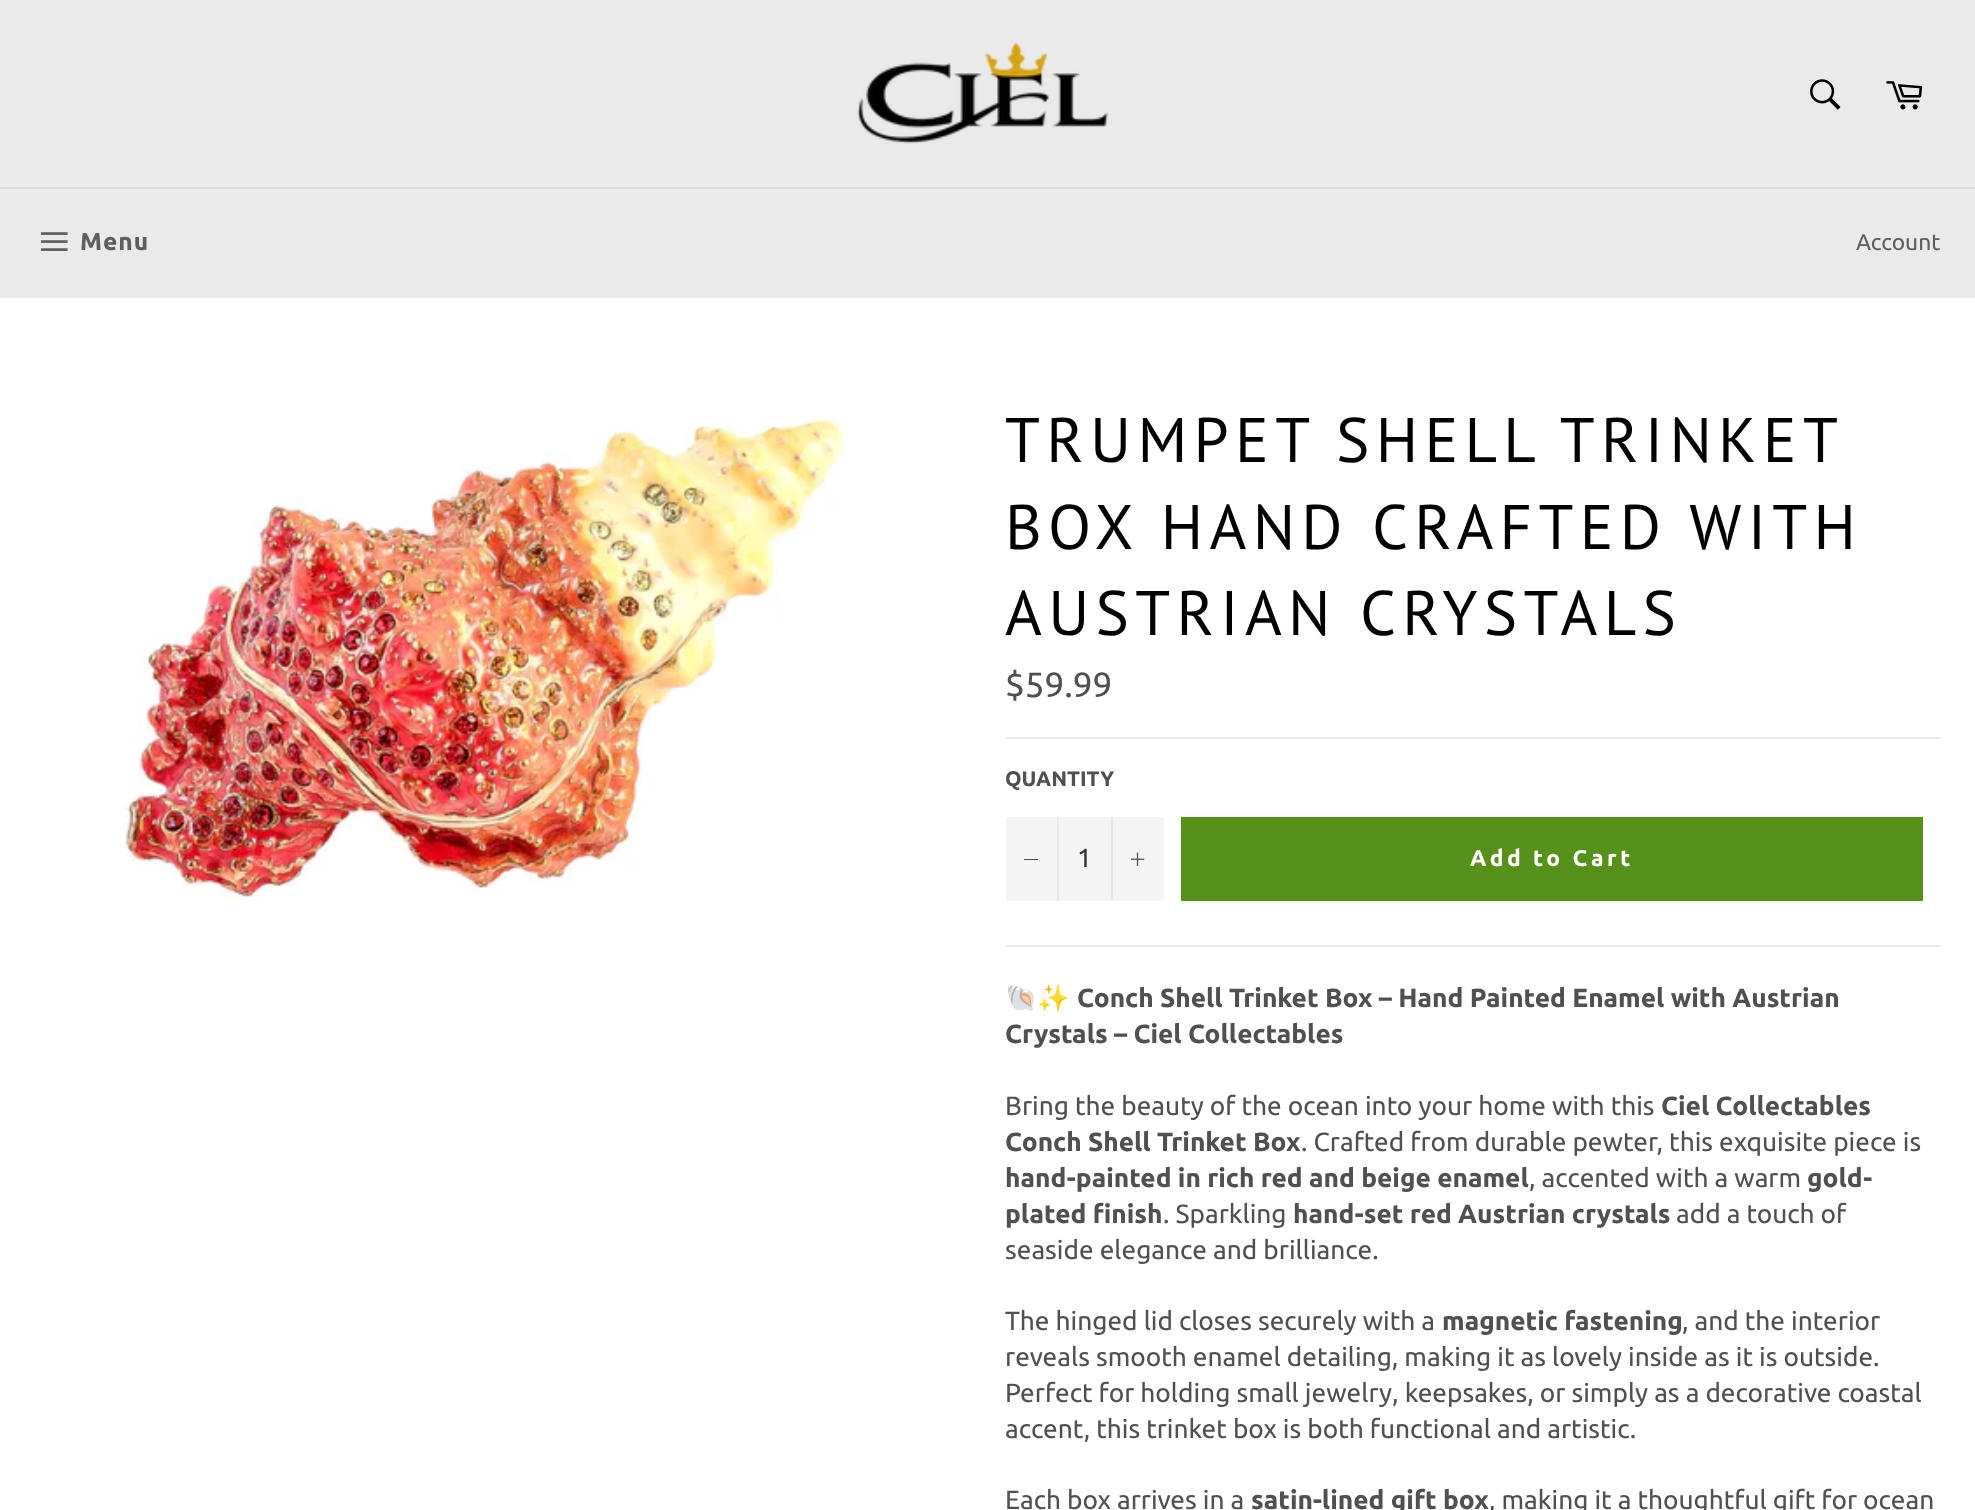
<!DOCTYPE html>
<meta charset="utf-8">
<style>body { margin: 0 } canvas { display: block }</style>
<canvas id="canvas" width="1975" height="1510"></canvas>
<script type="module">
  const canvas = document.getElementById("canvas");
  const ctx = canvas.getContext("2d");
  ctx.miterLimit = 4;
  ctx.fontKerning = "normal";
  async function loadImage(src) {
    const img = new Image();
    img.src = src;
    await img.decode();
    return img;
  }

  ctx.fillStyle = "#eaeaea";
  ctx.fillRect(0, 0, 1975, 1510);
  ctx.drawImage(await loadImage("img1.png"), 857, 41, 252, 103);
  ctx.drawImage(await loadImage("img2.png"), 1810, 79, 31, 31);
  ctx.drawImage(await loadImage("img3.png"), 1886, 81, 37, 29);
  ctx.fillStyle = "#dddddd";
  ctx.fillRect(0, 187, 1975, 2);
  ctx.drawImage(await loadImage("img4.png"), 40, 232, 28, 19);
  ctx.letterSpacing = "1px";
  ctx.font = "bold 24.5px Ubuntu";
  ctx.fillStyle = "#5e5e5e";
  ctx.fillText("Menu", 80, 250);
  ctx.letterSpacing = "0px";
  ctx.font = "22.75px Ubuntu";
  ctx.fillText("Account", 1856, 250);
  ctx.fillStyle = "#ffffff";
  ctx.fillRect(0, 298, 1975, 1212);
  ctx.drawImage(await loadImage("img5.png"), 124, 418, 721, 482);
  ctx.letterSpacing = "6.3px";
  ctx.wordSpacing = "-1px";
  ctx.font = "63px PT Sans";
  ctx.fillStyle = "#000000";
  ctx.fillText("TRUMPET SHELL TRINKET", 1005, 462);
  ctx.wordSpacing = "0px";
  ctx.fillText("BOX HAND CRAFTED WITH", 1005, 549);
  ctx.fillText("AUSTRIAN CRYSTALS", 1005, 635);
  ctx.letterSpacing = "0px";
  ctx.font = "35px Ubuntu";
  ctx.fillStyle = "#505050";
  ctx.fillText("$59.99", 1005, 697);
  ctx.fillStyle = "#eaeaea";
  ctx.fillRect(1006, 737, 935, 2);
  ctx.font = "bold 21px Ubuntu";
  ctx.fillStyle = "#505050";
  ctx.fillText("QUANTITY", 1005, 786);
  ctx.fillStyle = "#f4f4f4";
  ctx.fillRect(1006, 817, 158, 84);
  ctx.fillStyle = "#e7e7e7";
  ctx.fillRect(1057, 817, 2, 84);
  ctx.fillStyle = "#505050";
  ctx.fillRect(1024, 859, 14, 1);
  ctx.font = "26.25px Ubuntu";
  ctx.fillStyle = "#333333";
  ctx.fillText("1", 1077, 867);
  ctx.fillStyle = "#e7e7e7";
  ctx.fillRect(1111, 817, 2, 84);
  ctx.drawImage(await loadImage("img6.png"), 1131, 852, 14, 14);
  ctx.fillStyle = "#56911a";
  ctx.fillRect(1181, 817, 742, 84);
  ctx.letterSpacing = "3.5px";
  ctx.font = "bold 22.75px Ubuntu";
  ctx.fillStyle = "#ffffff";
  ctx.fillText("Add to Cart", 1470, 866);
  ctx.fillStyle = "#eaeaea";
  ctx.fillRect(1006, 945, 935, 2);
  ctx.letterSpacing = "0px";
  ctx.font = "26.25px Noto Color Emoji";
  ctx.fillStyle = "#505050";
  ctx.fillText("🐚✨", 1005, 1007);
  ctx.font = "bold 26.25px Ubuntu";
  ctx.fillText("Conch Shell Trinket Box – Hand Painted Enamel with Austrian", 1077, 1007);
  ctx.fillText("Crystals – Ciel Collectables", 1005, 1043);
  ctx.font = "26.25px Ubuntu";
  ctx.fillText("Bring the beauty of the ocean into your home with this", 1005, 1115);
  ctx.font = "bold 26.25px Ubuntu";
  ctx.fillText("Ciel Collectables", 1661, 1115);
  ctx.fillText("Conch Shell Trinket Box", 1005, 1151);
  ctx.font = "26.25px Ubuntu";
  ctx.fillText(". Crafted from durable pewter, this exquisite piece is", 1301, 1151);
  ctx.font = "bold 26.25px Ubuntu";
  ctx.fillText("hand-painted in rich red and beige enamel", 1005, 1187);
  ctx.font = "26.25px Ubuntu";
  ctx.fillText(", accented with a warm", 1529, 1187);
  ctx.font = "bold 26.25px Ubuntu";
  ctx.fillText("gold-", 1807, 1187);
  ctx.fillText("plated finish", 1005, 1223);
  ctx.font = "26.25px Ubuntu";
  ctx.fillText(". Sparkling", 1163, 1223);
  ctx.font = "bold 26.25px Ubuntu";
  ctx.fillText("hand-set red Austrian crystals", 1293, 1223);
  ctx.font = "26.25px Ubuntu";
  ctx.fillText("add a touch of", 1676, 1223);
  ctx.fillText("seaside elegance and brilliance.", 1005, 1259);
  ctx.fillText("The hinged lid closes securely with a", 1005, 1330);
  ctx.font = "bold 26.25px Ubuntu";
  ctx.fillText("magnetic fastening", 1442, 1330);
  ctx.font = "26.25px Ubuntu";
  ctx.fillText(", and the interior", 1682, 1330);
  ctx.fillText("reveals smooth enamel detailing, making it as lovely inside as it is outside.", 1005, 1366);
  ctx.fillText("Perfect for holding small jewelry, keepsakes, or simply as a decorative coastal", 1005, 1402);
  ctx.fillText("accent, this trinket box is both functional and artistic.", 1005, 1438);
  ctx.fillText("Each box arrives in a", 1005, 1509);
  ctx.font = "bold 26.25px Ubuntu";
  ctx.fillText("satin-lined gift box", 1251, 1509);
  ctx.font = "26.25px Ubuntu";
  ctx.fillText(", making it a thoughtful gift for ocean", 1489, 1509);
</script>
